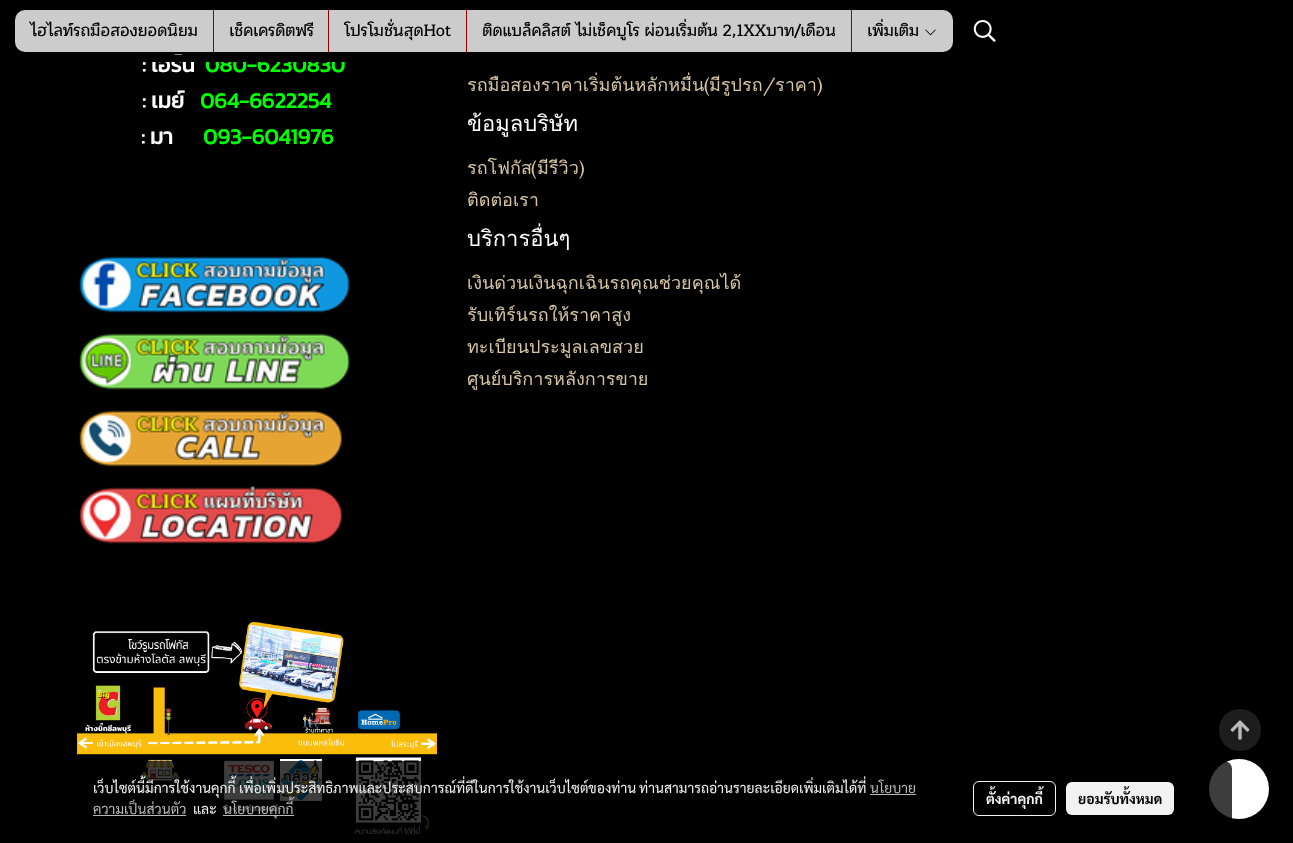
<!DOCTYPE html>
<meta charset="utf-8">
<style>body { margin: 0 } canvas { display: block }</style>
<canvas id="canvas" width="1293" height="843"></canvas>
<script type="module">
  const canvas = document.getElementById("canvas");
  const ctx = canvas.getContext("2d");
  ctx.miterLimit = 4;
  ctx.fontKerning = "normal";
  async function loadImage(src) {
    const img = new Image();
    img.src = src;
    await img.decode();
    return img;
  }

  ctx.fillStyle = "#000000";
  ctx.fillRect(0, 0, 1293, 843);
  ctx.fillStyle = "rgba(0, 0, 0, 0.12)";
  ctx.filter = "blur(5px)";
  ctx.beginPath();
  ctx.rect(0, 2, 1293, 62);
  ctx.fill();
  ctx.filter = "none";
  ctx.fillStyle = "rgba(0, 0, 0, 0.16)";
  ctx.filter = "blur(2.5px)";
  ctx.beginPath();
  ctx.rect(0, 2, 1293, 62);
  ctx.fill();
  ctx.filter = "none";
  ctx.font = "bold 22px Kanit";
  ctx.fillStyle = "#ffffff";
  ctx.fillText(": เอิร์น", 142, 72);
  ctx.fillStyle = "#00ff00";
  ctx.fillText("080-6230830", 205, 72);
  ctx.fillStyle = "#000000";
  ctx.fillRect(147, 55, 198, 7);
  ctx.fillStyle = "#980000";
  ctx.fillRect(213, 10, 1, 42);
  ctx.fillStyle = "#cccccc";
  ctx.beginPath();
  ctx.roundRect(15, 10, 198, 42, [10, 0, 0, 10]);
  ctx.fill();
  ctx.font = "bold 16px Maitree";
  ctx.fillStyle = "#000000";
  ctx.fillText("ไฮไลท์รถมือสองยอดนิยม", 30, 36);
  ctx.fillStyle = "#980000";
  ctx.fillRect(328, 10, 1, 42);
  ctx.fillStyle = "#cccccc";
  ctx.fillRect(214, 10, 114, 42);
  ctx.fillStyle = "#000000";
  ctx.fillText("เช็คเครดิตฟรี", 229, 36);
  ctx.fillStyle = "#980000";
  ctx.fillRect(466, 10, 1, 42);
  ctx.fillStyle = "#cccccc";
  ctx.fillRect(329, 10, 137, 42);
  ctx.fillStyle = "#000000";
  ctx.fillText("โปรโมชั่นสุดHot", 344, 36);
  ctx.fillStyle = "#980000";
  ctx.fillRect(851, 10, 1, 42);
  ctx.fillStyle = "#cccccc";
  ctx.fillRect(467, 10, 384, 42);
  ctx.fillStyle = "#000000";
  ctx.fillText("ติดแบล็คลิสต์ ไม่เช็คบูโร ผ่อนเริ่มต้น 2,1XXบาท/เดือน", 482, 36);
  ctx.fillStyle = "#cccccc";
  ctx.beginPath();
  ctx.roundRect(852, 10, 101, 42, [0, 10, 10, 0]);
  ctx.fill();
  ctx.fillStyle = "#000000";
  ctx.fillText("เพิ่มเติม", 867, 36);
  ctx.drawImage(await loadImage("img1.png"), 925, 29, 11, 7);
  ctx.drawImage(await loadImage("img2.png"), 973, 20, 23, 22);
  ctx.font = "bold 22px Kanit";
  ctx.fillStyle = "#ffffff";
  ctx.fillText(": เมย์", 142, 108);
  ctx.fillStyle = "#00ff00";
  ctx.fillText("064-6622254", 200, 108);
  ctx.fillStyle = "#ffffff";
  ctx.fillText(": มา", 141, 144);
  ctx.fillStyle = "#00ff00";
  ctx.fillText("093-6041976", 203, 144);
  ctx.drawImage(await loadImage("img3.png"), 79, 256, 271, 57);
  ctx.drawImage(await loadImage("img4.png"), 79, 333, 271, 57);
  ctx.drawImage(await loadImage("img5.png"), 79, 410, 264, 57);
  ctx.drawImage(await loadImage("img6.png"), 79, 486, 264, 58);
  ctx.drawImage(await loadImage("img7.png"), 77, 622, 360, 212);
  ctx.font = "18px Loma";
  ctx.fillStyle = "#d6c6a5";
  ctx.fillText("รถมือสองราคาเริ่มต้นหลักหมื่น", 467, 91);
  ctx.font = "18px Lora";
  ctx.fillText("(", 704, 91);
  ctx.font = "18px Loma";
  ctx.fillText("มีรูปรถ", 709, 91);
  ctx.font = "18px Lora";
  ctx.fillText("/", 763, 91);
  ctx.font = "18px Loma";
  ctx.fillText("ราคา", 775, 91);
  ctx.font = "18px Lora";
  ctx.fillText(")", 817, 91);
  ctx.font = "22px Loma";
  ctx.fillStyle = "#ffffff";
  ctx.fillText("ข้อมูลบริษัท", 467, 131);
  ctx.font = "18px Loma";
  ctx.fillStyle = "#d6c6a5";
  ctx.fillText("รถโฟกัส", 467, 174);
  ctx.font = "18px Lora";
  ctx.fillText("(", 531, 174);
  ctx.font = "18px Loma";
  ctx.fillText("มีรีวิว", 537, 174);
  ctx.font = "18px Lora";
  ctx.fillText(")", 579, 174);
  ctx.font = "18px Loma";
  ctx.fillText("ติดต่อเรา", 467, 206);
  ctx.font = "22px Loma";
  ctx.fillStyle = "#ffffff";
  ctx.fillText("บริการอื่นๆ", 467, 246);
  ctx.font = "18px Loma";
  ctx.fillStyle = "#d6c6a5";
  ctx.fillText("เงินด่วนเงินฉุกเฉินรถคุณช่วยคุณได้", 467, 289);
  ctx.fillText("รับเทิร์นรถให้ราคาสูง", 467, 321);
  ctx.fillText("ทะเบียนประมูลเลขสวย", 467, 353);
  ctx.fillText("ศูนย์บริการหลังการขาย", 467, 385);
  ctx.fillStyle = "#1e1d1d";
  ctx.beginPath();
  ctx.moveTo(1240, 709);
  ctx.bezierCurveTo(1212, 709, 1212, 751, 1240, 751);
  ctx.bezierCurveTo(1268, 751, 1268, 709, 1240, 709);
  ctx.closePath();
  ctx.fill();
  ctx.drawImage(await loadImage("img8.png"), 1230, 720, 20, 20);
  ctx.fillStyle = "#ffffff";
  ctx.beginPath();
  ctx.arc(1239, 789, 30, 0, Math.PI * 2);
  ctx.fill();
  ctx.fillStyle = "rgba(0, 0, 0, 0.76)";
  ctx.beginPath();
  ctx.roundRect(62, 761, 1170, 74, 8);
  ctx.fill();
  ctx.font = "14px Sarabun";
  ctx.fillStyle = "#f3f3f3";
  ctx.fillText("เว็บไซต์นี้มีการใช้งานคุกกี้ เพื่อเพิ่มประสิทธิภาพและประสบการณ์ที่ดีในการใช้งานเว็บไซต์ของท่าน", 93, 793);
  ctx.fillText("ท่านสามารถอ่านรายละเอียดเพิ่มเติมได้ที่", 639, 793);
  ctx.fillStyle = "#b8b8b8";
  ctx.fillText("นโยบาย", 870, 793);
  ctx.fillRect(870, 794, 46, 1);
  ctx.fillText("ความเป็นส่วนตัว", 93, 814);
  ctx.fillRect(93, 815, 93, 1);
  ctx.fillStyle = "#f3f3f3";
  ctx.fillText("และ", 193, 814);
  ctx.fillStyle = "#b8b8b8";
  ctx.fillRect(223, 815, 71, 1);
  ctx.fillText("นโยบายคุกกี้", 223, 814);
  ctx.beginPath();
  ctx.roundRect(973.5, 781.5, 82, 34, 5.5);
  ctx.strokeStyle = "#f2f2f2";
  ctx.stroke();
  ctx.font = "bold 14px Sarabun";
  ctx.fillStyle = "#f3f3f3";
  ctx.fillText("ตั้งค่าคุกกี้", 986, 804);
  ctx.fillStyle = "#f2f2f2";
  ctx.beginPath();
  ctx.roundRect(1066, 782, 108, 33, 6);
  ctx.fill();
  ctx.fillStyle = "#000000";
  ctx.fillText("ยอมรับทั้งหมด", 1078, 804);
</script>
